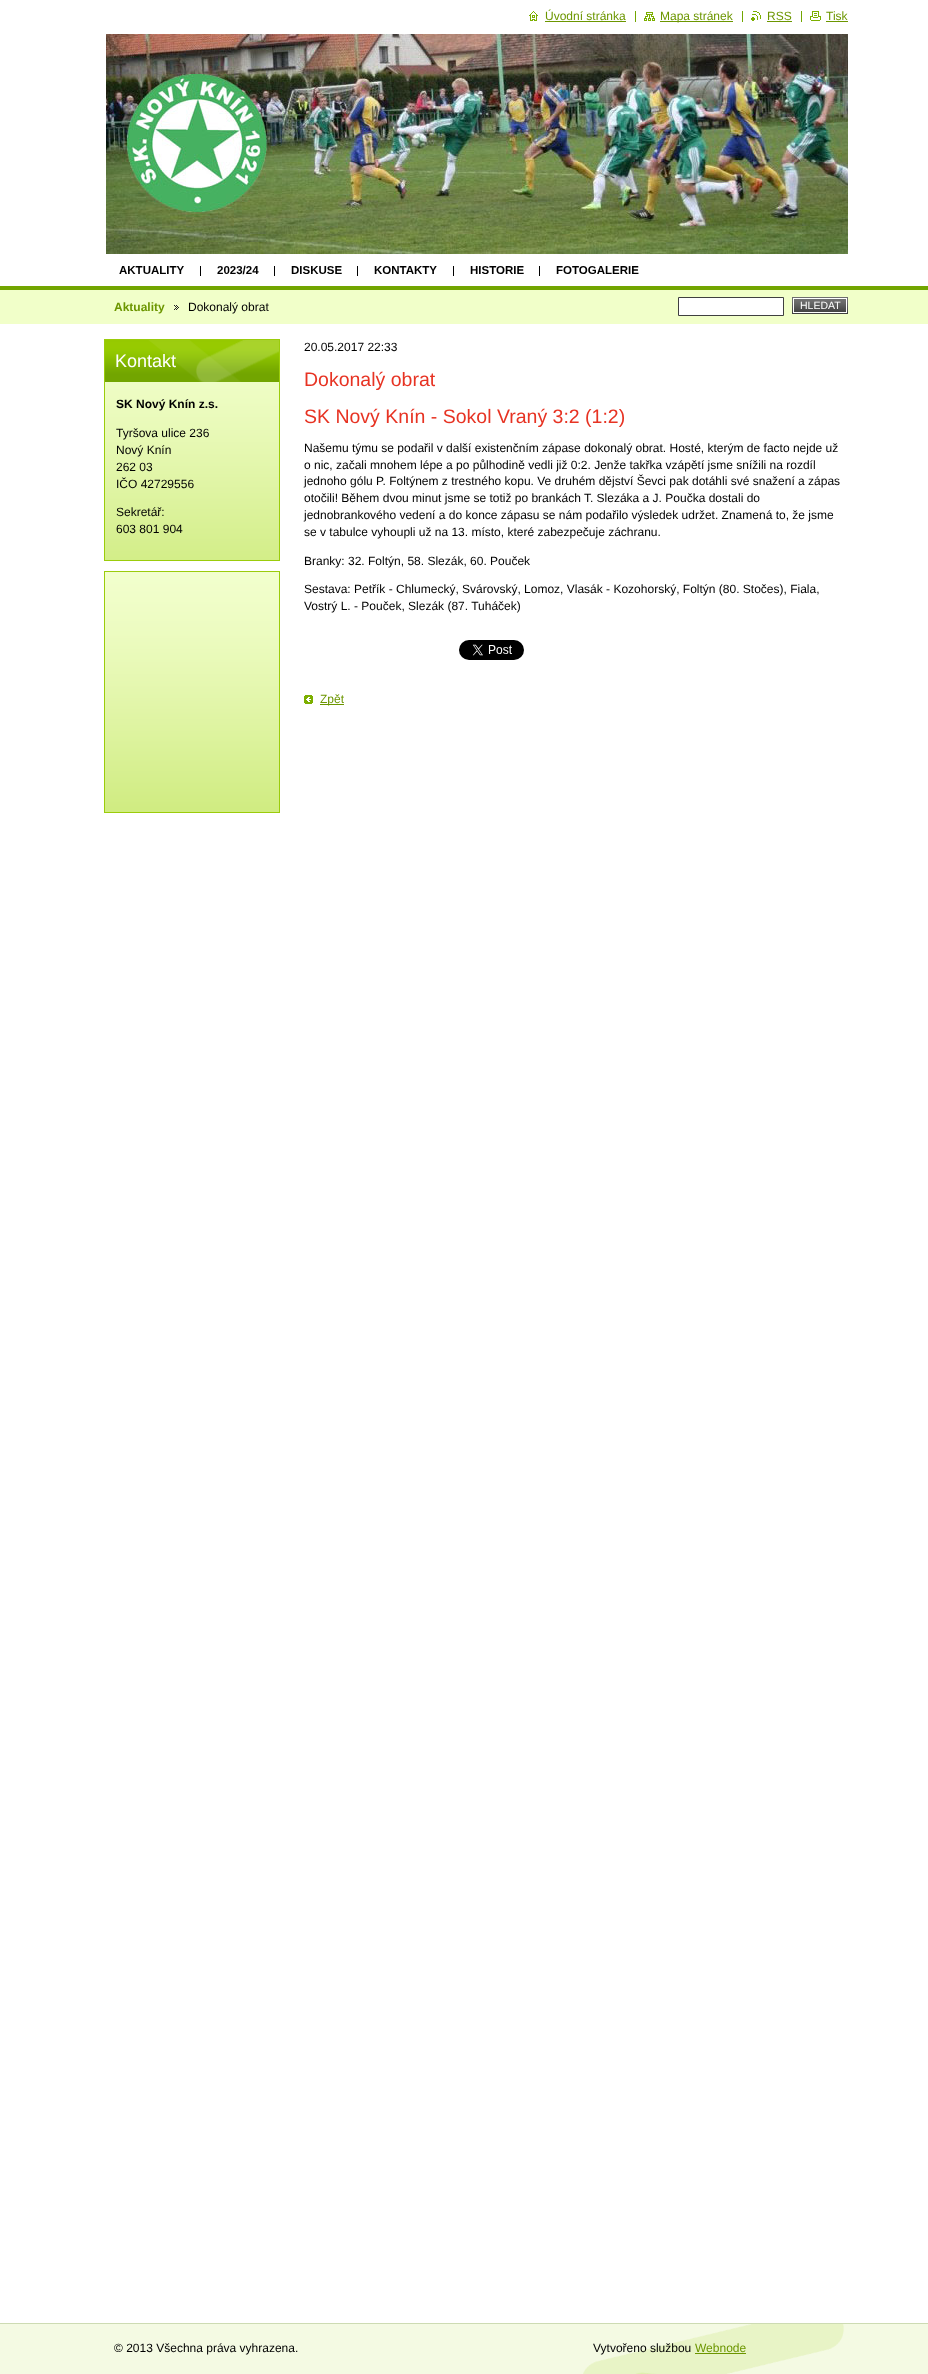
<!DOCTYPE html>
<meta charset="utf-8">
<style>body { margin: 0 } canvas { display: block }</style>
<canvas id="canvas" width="928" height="2374"></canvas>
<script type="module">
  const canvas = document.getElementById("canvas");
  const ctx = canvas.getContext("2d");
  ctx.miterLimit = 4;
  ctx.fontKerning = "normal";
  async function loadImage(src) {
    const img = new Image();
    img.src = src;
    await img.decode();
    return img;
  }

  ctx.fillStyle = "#ffffff";
  ctx.fillRect(0, 0, 928, 2374);
  ctx.drawImage(await loadImage("img1.png"), 529, 11, 9, 10);
  ctx.font = "12px Liberation Sans";
  ctx.fillStyle = "#6c9600";
  ctx.fillText("Úvodní stránka", 545, 20);
  ctx.fillRect(545, 21, 81, 1);
  ctx.drawImage(await loadImage("img2.png"), 644, 12, 11, 9);
  ctx.fillRect(660, 21, 73, 1);
  ctx.fillText("Mapa stránek", 660, 20);
  ctx.fillStyle = "#72a500";
  ctx.fillRect(635, 11, 1, 11);
  ctx.drawImage(await loadImage("img3.png"), 751, 11, 10, 10);
  ctx.fillStyle = "#6c9600";
  ctx.fillText("RSS", 767, 20);
  ctx.fillStyle = "#72a500";
  ctx.fillRect(742, 11, 1, 11);
  ctx.fillStyle = "#6c9600";
  ctx.fillRect(767, 21, 25, 1);
  ctx.drawImage(await loadImage("img4.png"), 810, 11, 11, 10);
  ctx.fillText("Tisk", 826, 20);
  ctx.fillStyle = "#72a500";
  ctx.fillRect(801, 11, 1, 11);
  ctx.fillStyle = "#6c9600";
  ctx.fillRect(826, 21, 22, 1);
  ctx.drawImage(await loadImage("img5.png"), 106, 34, 742, 220);
  ctx.font = "bold 11.5px Liberation Sans";
  ctx.fillStyle = "#000000";
  ctx.fillText("AKTUALITY", 119, 274);
  ctx.fillRect(200, 266, 1, 10);
  ctx.fillText("2023/24", 217, 274);
  ctx.fillRect(274, 266, 1, 10);
  ctx.fillText("DISKUSE", 291, 274);
  ctx.fillRect(357, 266, 1, 10);
  ctx.fillText("KONTAKTY", 374, 274);
  ctx.fillRect(453, 266, 1, 10);
  ctx.fillText("HISTORIE", 470, 274);
  ctx.fillRect(539, 266, 1, 10);
  ctx.fillText("FOTOGALERIE", 556, 274);
  ctx.fillStyle = "#f1ffc9";
  ctx.fillRect(0, 290, 928, 34);
  ctx.fillStyle = "#72a500";
  ctx.fillRect(0, 286, 928, 4);
  ctx.font = "bold 12px Liberation Sans";
  ctx.fillStyle = "#6c9600";
  ctx.fillText("Aktuality", 114, 311);
  ctx.drawImage(await loadImage("img6.png"), 174, 305, 5, 5);
  ctx.font = "12px Liberation Sans";
  ctx.fillStyle = "#000000";
  ctx.fillText("Dokonalý obrat", 188, 311);
  ctx.fillStyle = "#ffffff";
  ctx.beginPath();
  ctx.rect(678.5, 297.5, 105, 18);
  ctx.fill();
  ctx.strokeStyle = "#404040";
  ctx.stroke();
  ctx.fillStyle = "#404040";
  ctx.fillRect(792, 312, 56, 2);
  ctx.drawImage(await loadImage("img7.png"), 792, 297, 56, 15);
  ctx.drawImage(await loadImage("img8.png"), 794, 299, 52, 13);
  ctx.strokeStyle = "#ffffff";
  ctx.strokeRect(793.5, 298.5, 53, 14);
  ctx.font = "10.5px Liberation Sans";
  ctx.fillStyle = "#ffffff";
  ctx.fillText("HLEDAT", 800, 309);
  ctx.drawImage(await loadImage("img9.png"), 105, 382, 174, 178);
  ctx.strokeStyle = "#9bcc0b";
  ctx.strokeRect(104.5, 339.5, 175, 221);
  ctx.drawImage(await loadImage("img10.png"), 105, 340, 174, 42);
  ctx.font = "18px Liberation Sans";
  ctx.fillText("Kontakt", 115, 367);
  ctx.font = "bold 12px Liberation Sans";
  ctx.fillStyle = "#000000";
  ctx.fillText("SK Nový Knín z.s.", 116, 408);
  ctx.font = "12px Liberation Sans";
  ctx.fillText("Tyršova ulice 236", 116, 437);
  ctx.fillText("Nový Knín", 116, 454);
  ctx.fillText("262 03", 116, 471);
  ctx.fillText("IČO 42729556", 116, 488);
  ctx.fillText("Sekretář:", 116, 516);
  ctx.fillText("603 801 904", 116, 533);
  ctx.drawImage(await loadImage("img11.png"), 105, 572, 174, 240);
  ctx.strokeRect(104.5, 571.5, 175, 241);
  ctx.fillText("20.05.2017 22:33", 304, 351);
  ctx.font = "19.5px Liberation Sans";
  ctx.fillStyle = "#e73323";
  ctx.fillText("Dokonalý obrat", 304, 386);
  ctx.fillText("SK Nový Knín - Sokol Vraný 3:2 (1:2)", 304, 423);
  ctx.font = "12px Liberation Sans";
  ctx.fillStyle = "#000000";
  ctx.fillText("Našemu týmu se podařil v další existenčním zápase dokonalý obrat. Hosté, kterým de facto nejde už", 304, 452);
  ctx.fillText("o nic, začali mnohem lépe a po půlhodině vedli již 0:2. Jenže takřka vzápětí jsme snížili na rozdíl", 304, 469);
  ctx.fillText("jednoho gólu P. Foltýnem z trestného kopu. Ve druhém dějství Ševci pak dotáhli své snažení a zápas", 304, 485);
  ctx.fillText("otočili! Během dvou minut jsme se totiž po brankách T. Slezáka a J. Poučka dostali do", 304, 502);
  ctx.fillText("jednobrankového vedení a do konce zápasu se nám podařilo výsledek udržet. Znamená to, že jsme", 304, 519);
  ctx.fillText("se v tabulce vyhoupli už na 13. místo, které zabezpečuje záchranu.", 304, 536);
  ctx.fillText("Branky: 32. Foltýn, 58. Slezák, 60. Pouček", 304, 565);
  ctx.fillText("Sestava: Petřík - Chlumecký, Svárovský, Lomoz, Vlasák - Kozohorský, Foltýn (80. Stočes), Fiala,", 304, 593);
  ctx.fillText("Vostrý L. - Pouček, Slezák (87. Tuháček)", 304, 610);
  ctx.drawImage(await loadImage("img12.png"), 459, 640, 65, 20);
  ctx.drawImage(await loadImage("img13.png"), 304, 695, 9, 9);
  ctx.fillStyle = "#6c9600";
  ctx.fillRect(320, 704, 24, 1);
  ctx.fillText("Zpět", 320, 703);
  ctx.fillStyle = "#f4fae3";
  ctx.fillRect(0, 2324, 928, 50);
  ctx.fillStyle = "#cddbb3";
  ctx.fillRect(0, 2323, 928, 1);
  ctx.drawImage(await loadImage("img14.png"), 583, 2324, 261, 50);
  ctx.fillStyle = "#000000";
  ctx.fillText("© 2013 Všechna práva vyhrazena.", 114, 2352);
  ctx.fillText("Vytvořeno službou", 593, 2352);
  ctx.fillStyle = "#6c9600";
  ctx.fillText("Webnode", 695, 2352);
  ctx.fillRect(695, 2353, 51, 1);
</script>
